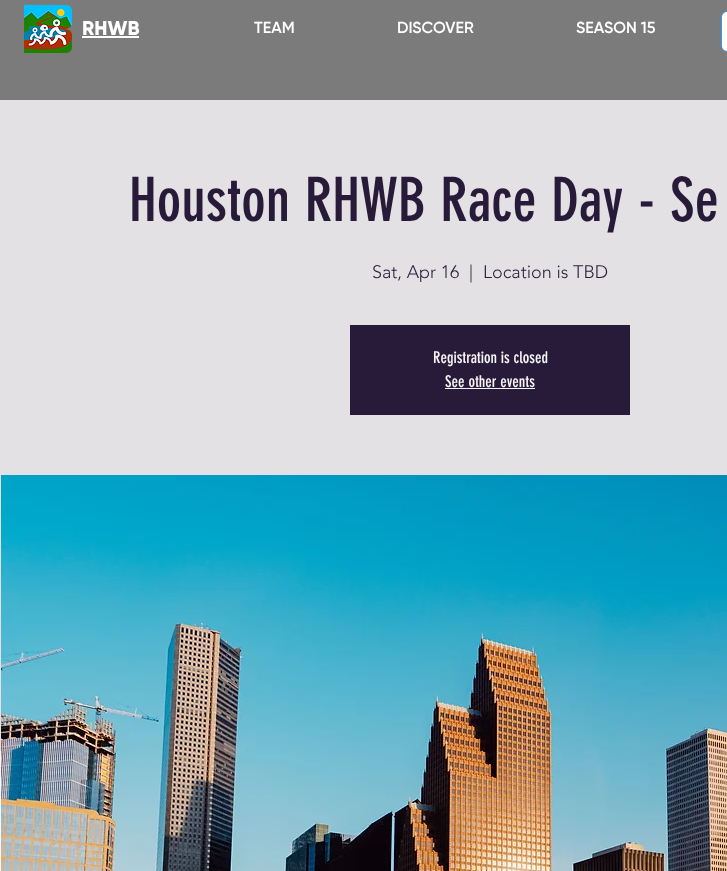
<!DOCTYPE html>
<meta charset="utf-8">
<style>body { margin: 0 } canvas { display: block }</style>
<canvas id="canvas" width="727" height="871"></canvas>
<script type="module">
  const canvas = document.getElementById("canvas");
  const ctx = canvas.getContext("2d");
  ctx.miterLimit = 4;
  ctx.fontKerning = "normal";
  async function loadImage(src) {
    const img = new Image();
    img.src = src;
    await img.decode();
    return img;
  }

  ctx.fillStyle = "#f6f6f6";
  ctx.fillRect(0, 0, 727, 871);
  ctx.fillStyle = "#7b7b7b";
  ctx.fillRect(0, 0, 727, 100);
  ctx.drawImage(await loadImage("img1.png"), 24, 5, 48, 48);
  ctx.font = "800 20px Gilroy";
  ctx.fillStyle = "#ffffff";
  ctx.fillText("RHWB", 82, 35);
  ctx.fillRect(82, 36, 57, 2);
  ctx.font = "600 16px Gilroy";
  ctx.fillText("TEAM", 254, 33);
  ctx.fillText("DISCOVER", 397, 33);
  ctx.fillText("SEASON 15", 576, 33);
  ctx.beginPath();
  ctx.roundRect(721.5, 11.5, 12, 40, 5.5);
  ctx.strokeStyle = "#3d9be9";
  ctx.stroke();
  ctx.beginPath();
  ctx.roundRect(722, 12, 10, 39, 5);
  ctx.fill();
  ctx.fillStyle = "#e3e1e4";
  ctx.fillRect(0, 100, 727, 651);
  ctx.font = "60px 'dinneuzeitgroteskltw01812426'";
  ctx.fillStyle = "#281a39";
  ctx.fillText("Houston RHWB Race Day - Se", 129, 221);
  ctx.font = "300 18px 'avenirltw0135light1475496'";
  ctx.fillText("Sat, Apr 16", 372, 278);
  ctx.fillText("|", 469, 278);
  ctx.fillText("Location is TBD", 483, 278);
  ctx.fillRect(350, 325, 280, 90);
  ctx.font = "16px 'dinneuzeitgroteskltw01812426'";
  ctx.fillStyle = "#f6f6f6";
  ctx.fillText("Registration is closed", 433, 363);
  ctx.fillText("See other events", 445, 387);
  ctx.fillRect(445, 388, 90, 1);
  ctx.drawImage(await loadImage("img2.png"), 1, 475, 726, 396);
</script>
